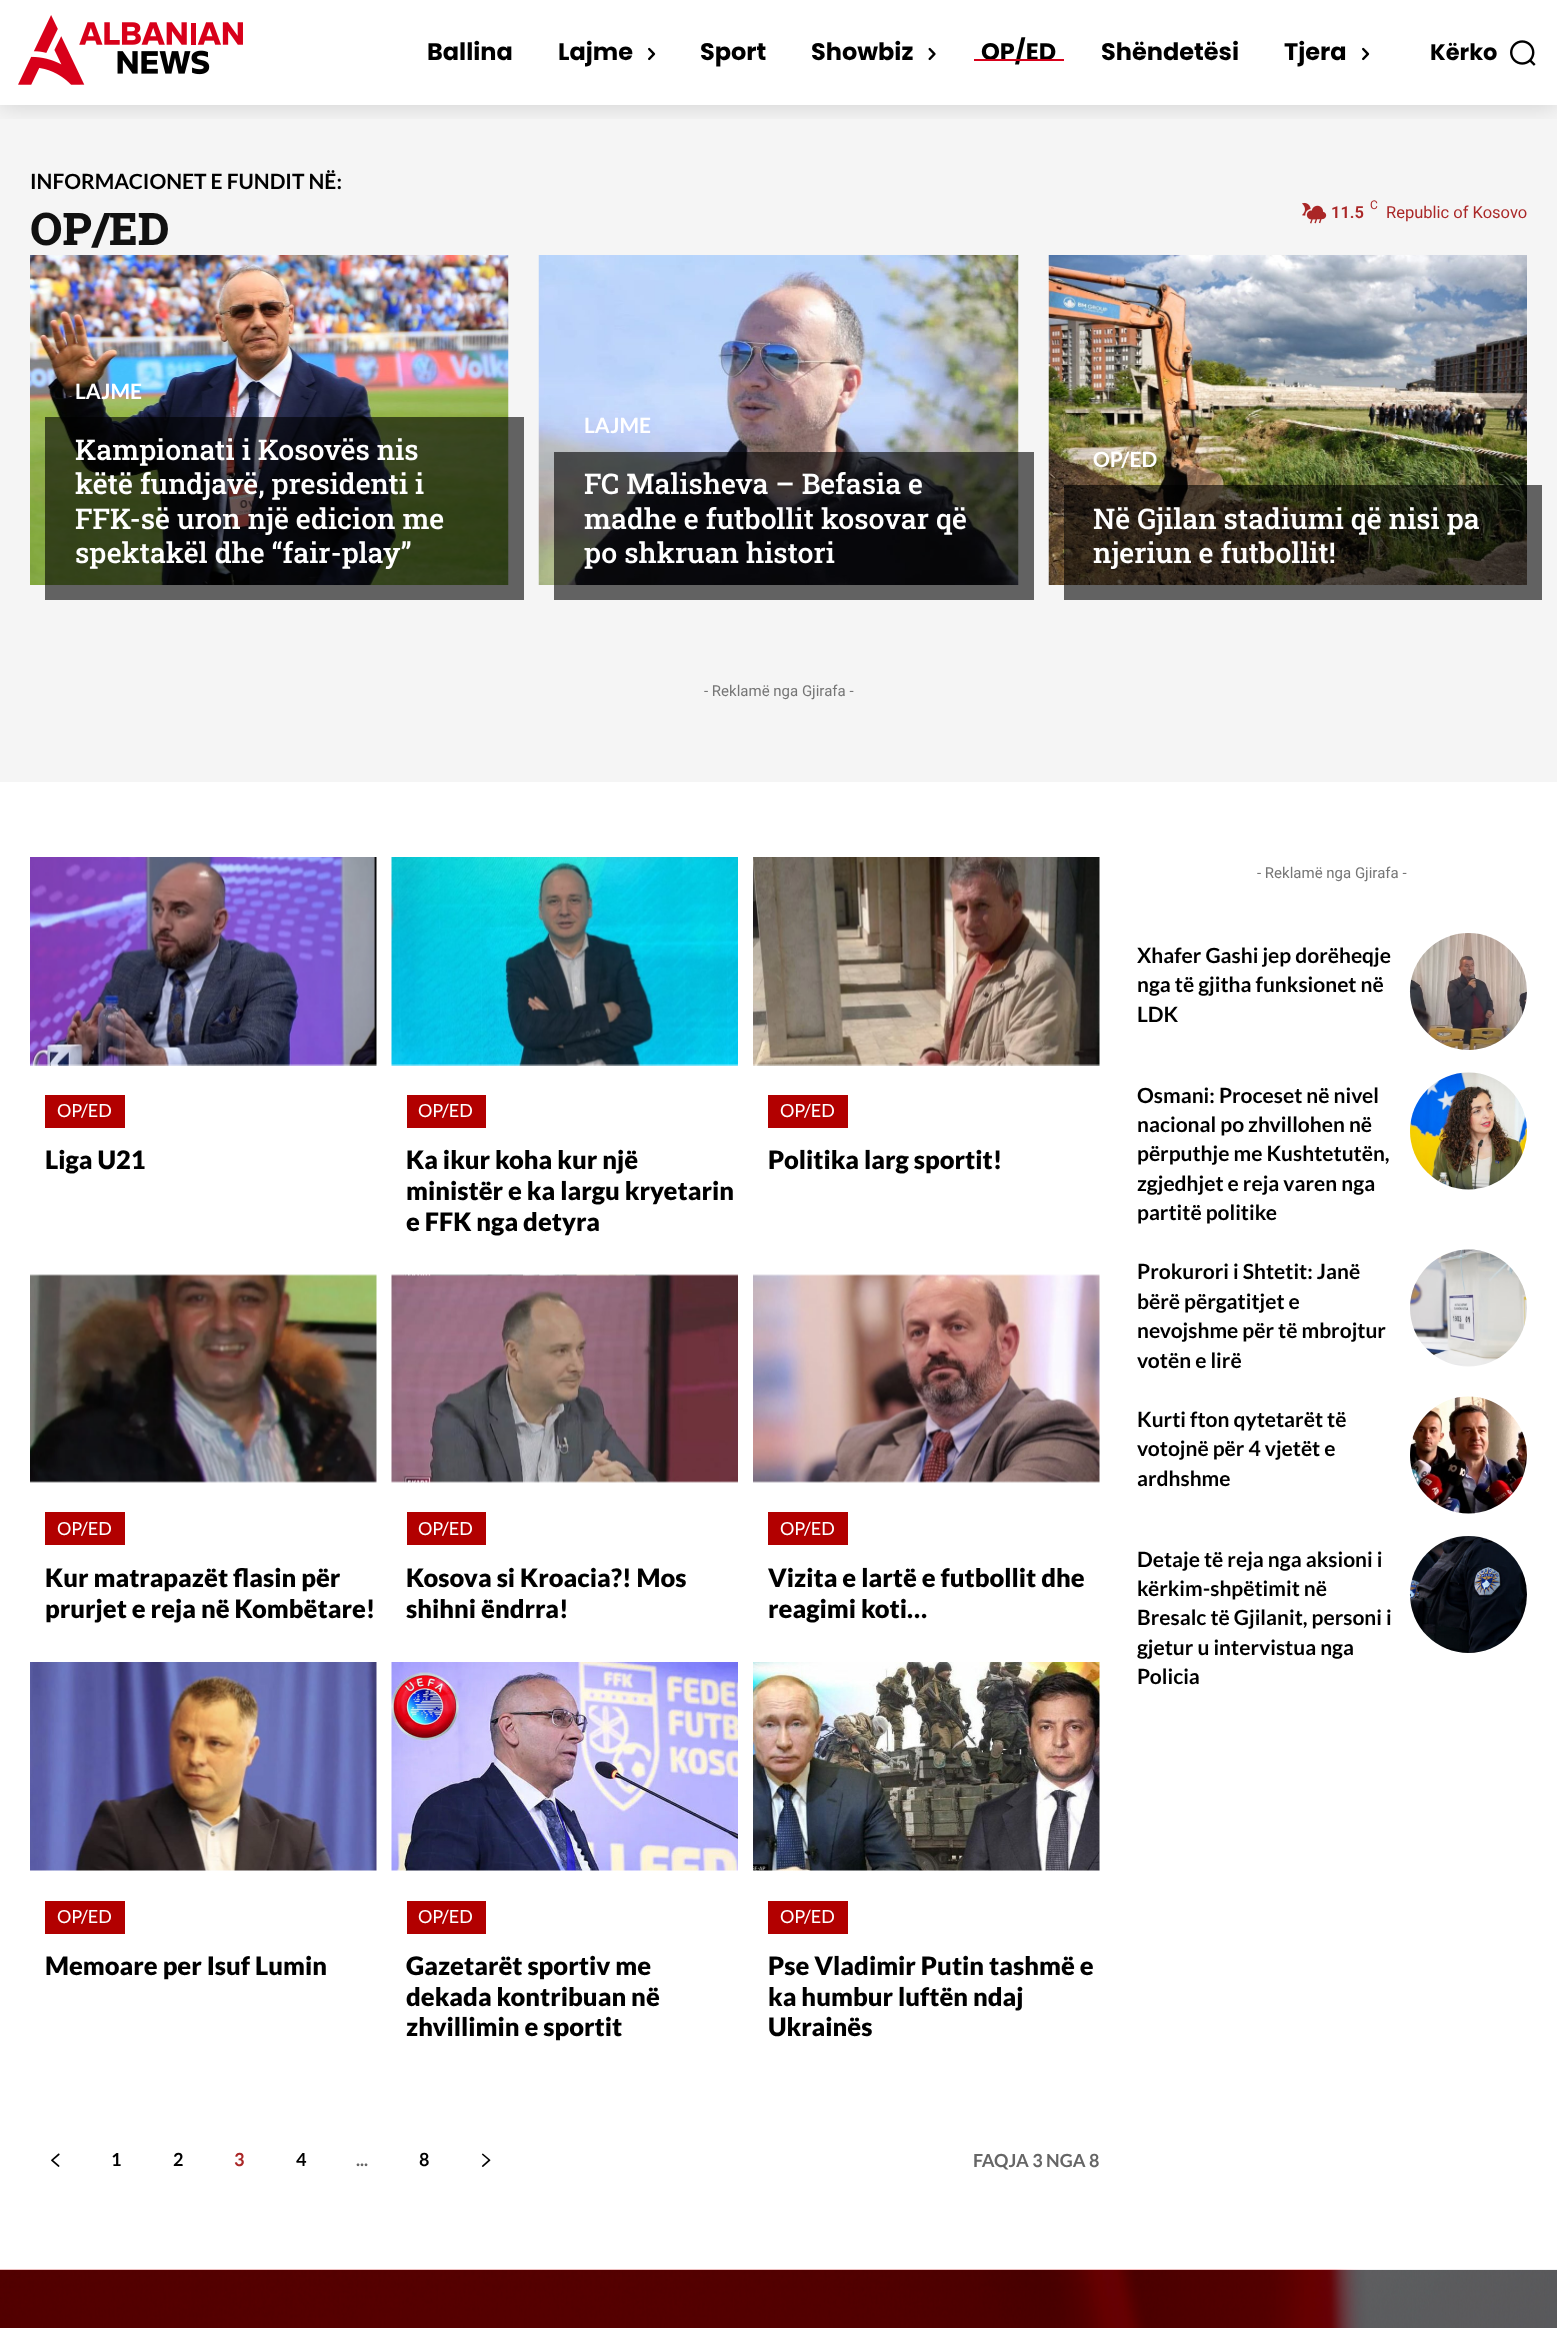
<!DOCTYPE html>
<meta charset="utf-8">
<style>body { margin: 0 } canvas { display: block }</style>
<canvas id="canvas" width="1557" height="2328"></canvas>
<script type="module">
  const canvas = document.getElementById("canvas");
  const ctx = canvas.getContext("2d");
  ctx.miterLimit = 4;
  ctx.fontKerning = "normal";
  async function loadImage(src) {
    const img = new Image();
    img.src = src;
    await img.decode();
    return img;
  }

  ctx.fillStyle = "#ffffff";
  ctx.fillRect(0, 0, 1557, 2328);
  ctx.fillStyle = "#f5f5f5";
  ctx.fillRect(0, 105, 1557, 677);
  ctx.save();
  ctx.beginPath();
  ctx.rect(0, 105, 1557, 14);
  ctx.clip();
  ctx.fillStyle = "rgba(0, 0, 0, 0.16)";
  ctx.filter = "blur(12px)";
  ctx.beginPath();
  ctx.rect(0, 0, 1557, 105);
  ctx.fill();
  ctx.filter = "none";
  ctx.restore();
  ctx.drawImage(await loadImage("img1.png"), 18, 15, 225, 70);
  ctx.font = "bold 24px Poppins";
  ctx.fillStyle = "#000000";
  ctx.fillText("Ballina", 427, 60);
  ctx.fillText("Lajme", 558, 60);
  ctx.drawImage(await loadImage("img2.png"), 648, 47, 8, 14);
  ctx.fillText("Sport", 700, 60);
  ctx.fillText("Showbiz", 811, 60);
  ctx.drawImage(await loadImage("img3.png"), 928, 47, 8, 14);
  ctx.fillText("OP/ED", 981, 60);
  ctx.fillStyle = "#d8001a";
  ctx.fillRect(974, 59, 90, 2);
  ctx.fillStyle = "#000000";
  ctx.fillText("Shëndetësi", 1101, 60);
  ctx.fillText("Tjera", 1284, 60);
  ctx.drawImage(await loadImage("img2.png"), 1362, 47, 8, 14);
  ctx.font = "bold 22.5px Poppins";
  ctx.fillText("Kërko", 1430, 60);
  ctx.drawImage(await loadImage("img4.png"), 1510, 40, 26, 26);
  ctx.font = "bold 21px Lato";
  ctx.fillText("INFORMACIONET E FUNDIT NË:", 30, 189);
  ctx.font = "800 45px Roboto Slab";
  ctx.fillStyle = "#111111";
  ctx.fillText("OP/ED", 30, 245);
  ctx.drawImage(await loadImage("img5.png"), 1302, 202, 25, 22);
  ctx.font = "12px Roboto";
  ctx.fillStyle = "#aa2727";
  ctx.fillText("C", 1370, 209);
  ctx.font = "600 16.5px Roboto";
  ctx.fillText("11.5", 1331, 218);
  ctx.font = "16.5px Roboto";
  ctx.fillText("Republic of Kosovo", 1386, 218);
  ctx.drawImage(await loadImage("img6.png"), 30, 255, 479, 330);
  ctx.fillStyle = "rgba(0, 0, 0, 0.6)";
  ctx.fillRect(45, 417, 479, 183);
  ctx.font = "bold 21px Lato";
  ctx.fillStyle = "#ffffff";
  ctx.fillText("LAJME", 75, 399);
  ctx.font = "500 28.5px Roboto Slab";
  ctx.fillText("Kampionati i Kosovës nis", 75, 460);
  ctx.fillText("këtë fundjavë, presidenti i", 75, 494);
  ctx.fillText("FFK-së uron një edicion me", 75, 529);
  ctx.fillText("spektakël dhe “fair-play”", 75, 563);
  ctx.drawImage(await loadImage("img7.png"), 538, 255, 481, 330);
  ctx.fillStyle = "rgba(0, 0, 0, 0.6)";
  ctx.fillRect(554, 452, 480, 148);
  ctx.font = "bold 21px Lato";
  ctx.fillStyle = "#ffffff";
  ctx.fillText("LAJME", 584, 433);
  ctx.font = "500 28.5px Roboto Slab";
  ctx.fillText("FC Malisheva – Befasia e", 584, 494);
  ctx.fillText("madhe e futbollit kosovar që", 584, 529);
  ctx.fillText("po shkruan histori", 584, 563);
  ctx.drawImage(await loadImage("img8.png"), 1048, 255, 479, 330);
  ctx.fillStyle = "rgba(0, 0, 0, 0.6)";
  ctx.fillRect(1064, 485, 478, 115);
  ctx.font = "bold 21px Lato";
  ctx.fillStyle = "#ffffff";
  ctx.fillText("OP/ED", 1093, 467);
  ctx.font = "500 28.5px Roboto Slab";
  ctx.fillText("Në Gjilan stadiumi që nisi pa", 1093, 529);
  ctx.fillText("njeriun e futbollit!", 1093, 563);
  ctx.font = "15px Roboto";
  ctx.fillStyle = "#767676";
  ctx.fillText("- Reklamë nga Gjirafa -", 704, 696);
  ctx.drawImage(await loadImage("img9.png"), 30, 857, 347, 209);
  ctx.fillStyle = "#b20000";
  ctx.fillRect(45, 1095, 80, 33);
  ctx.font = "18px Lato";
  ctx.fillStyle = "#ffffff";
  ctx.fillText("OP/ED", 57, 1117);
  ctx.font = "900 25.5px Lato";
  ctx.fillStyle = "#000000";
  ctx.fillText("Liga U21", 45, 1169);
  ctx.drawImage(await loadImage("img10.png"), 391, 857, 347, 209);
  ctx.fillStyle = "#b20000";
  ctx.fillRect(407, 1095, 79, 33);
  ctx.font = "18px Lato";
  ctx.fillStyle = "#ffffff";
  ctx.fillText("OP/ED", 418, 1117);
  ctx.font = "900 25.5px Lato";
  ctx.fillStyle = "#000000";
  ctx.fillText("Ka ikur koha kur një", 406, 1169);
  ctx.fillText("ministër e ka largu kryetarin", 406, 1200);
  ctx.fillText("e FFK nga detyra", 406, 1231);
  ctx.drawImage(await loadImage("img11.png"), 753, 857, 347, 209);
  ctx.fillStyle = "#b20000";
  ctx.fillRect(768, 1095, 80, 33);
  ctx.font = "18px Lato";
  ctx.fillStyle = "#ffffff";
  ctx.fillText("OP/ED", 780, 1117);
  ctx.font = "900 25.5px Lato";
  ctx.fillStyle = "#000000";
  ctx.fillText("Politika larg sportit!", 768, 1169);
  ctx.drawImage(await loadImage("img12.png"), 30, 1274, 347, 209);
  ctx.fillStyle = "#b20000";
  ctx.fillRect(45, 1512, 80, 33);
  ctx.font = "18px Lato";
  ctx.fillStyle = "#ffffff";
  ctx.fillText("OP/ED", 57, 1535);
  ctx.font = "900 25.5px Lato";
  ctx.fillStyle = "#000000";
  ctx.fillText("Kur matrapazët flasin për", 45, 1587);
  ctx.fillText("prurjet e reja në Kombëtare!", 45, 1618);
  ctx.drawImage(await loadImage("img13.png"), 391, 1274, 347, 209);
  ctx.fillStyle = "#b20000";
  ctx.fillRect(407, 1512, 79, 33);
  ctx.font = "18px Lato";
  ctx.fillStyle = "#ffffff";
  ctx.fillText("OP/ED", 418, 1535);
  ctx.font = "900 25.5px Lato";
  ctx.fillStyle = "#000000";
  ctx.fillText("Kosova si Kroacia?! Mos", 406, 1587);
  ctx.fillText("shihni ëndrra!", 406, 1618);
  ctx.drawImage(await loadImage("img14.png"), 753, 1274, 347, 209);
  ctx.fillStyle = "#b20000";
  ctx.fillRect(768, 1512, 80, 33);
  ctx.font = "18px Lato";
  ctx.fillStyle = "#ffffff";
  ctx.fillText("OP/ED", 780, 1535);
  ctx.font = "900 25.5px Lato";
  ctx.fillStyle = "#000000";
  ctx.fillText("Vizita e lartë e futbollit dhe", 768, 1587);
  ctx.fillText("reagimi koti…", 768, 1618);
  ctx.drawImage(await loadImage("img15.png"), 30, 1662, 347, 209);
  ctx.fillStyle = "#b20000";
  ctx.fillRect(45, 1901, 80, 33);
  ctx.font = "18px Lato";
  ctx.fillStyle = "#ffffff";
  ctx.fillText("OP/ED", 57, 1923);
  ctx.font = "900 25.5px Lato";
  ctx.fillStyle = "#000000";
  ctx.fillText("Memoare per Isuf Lumin", 45, 1975);
  ctx.drawImage(await loadImage("img16.png"), 391, 1662, 347, 209);
  ctx.fillStyle = "#b20000";
  ctx.fillRect(407, 1901, 79, 33);
  ctx.font = "18px Lato";
  ctx.fillStyle = "#ffffff";
  ctx.fillText("OP/ED", 418, 1923);
  ctx.font = "900 25.5px Lato";
  ctx.fillStyle = "#000000";
  ctx.fillText("Gazetarët sportiv me", 406, 1975);
  ctx.fillText("dekada kontribuan në", 406, 2006);
  ctx.fillText("zhvillimin e sportit", 406, 2036);
  ctx.drawImage(await loadImage("img17.png"), 753, 1662, 347, 209);
  ctx.fillStyle = "#b20000";
  ctx.fillRect(768, 1901, 80, 33);
  ctx.font = "18px Lato";
  ctx.fillStyle = "#ffffff";
  ctx.fillText("OP/ED", 780, 1923);
  ctx.font = "900 25.5px Lato";
  ctx.fillStyle = "#000000";
  ctx.fillText("Pse Vladimir Putin tashmë e", 768, 1975);
  ctx.fillText("ka humbur luftën ndaj", 768, 2006);
  ctx.fillText("Ukrainës", 768, 2036);
  ctx.drawImage(await loadImage("img18.png"), 51, 2153, 9, 14);
  ctx.font = "bold 18px Lato";
  ctx.fillText("1", 111, 2166);
  ctx.fillText("2", 173, 2166);
  ctx.fillStyle = "#aa2727";
  ctx.fillText("3", 234, 2166);
  ctx.fillStyle = "#000000";
  ctx.fillText("4", 296, 2166);
  ctx.fillStyle = "#666666";
  ctx.fillText("...", 356, 2166);
  ctx.fillStyle = "#000000";
  ctx.fillText("8", 419, 2166);
  ctx.drawImage(await loadImage("img19.png"), 481, 2153, 10, 14);
  ctx.fillStyle = "#666666";
  ctx.fillText("FAQJA 3 NGA 8", 973, 2167);
  ctx.font = "15px Roboto";
  ctx.fillStyle = "#767676";
  ctx.fillText("- Reklamë nga Gjirafa -", 1257, 878);
  ctx.font = "bold 21px Lato";
  ctx.fillStyle = "#000000";
  ctx.fillText("Xhafer Gashi jep dorëheqje", 1137, 963);
  ctx.fillText("nga të gjitha funksionet në", 1137, 992);
  ctx.fillText("LDK", 1137, 1022);
  ctx.drawImage(await loadImage("img20.png"), 1409, 933, 118, 117);
  ctx.fillText("Osmani: Proceset në nivel", 1137, 1103);
  ctx.fillText("nacional po zhvillohen në", 1137, 1132);
  ctx.fillText("përputhje me Kushtetutën,", 1137, 1161);
  ctx.fillText("zgjedhjet e reja varen nga", 1137, 1191);
  ctx.fillText("partitë politike", 1137, 1220);
  ctx.drawImage(await loadImage("img21.png"), 1410, 1072, 117, 118);
  ctx.fillText("Prokurori i Shtetit: Janë", 1137, 1279);
  ctx.fillText("bërë përgatitjet e", 1137, 1309);
  ctx.fillText("nevojshme për të mbrojtur", 1137, 1338);
  ctx.fillText("votën e lirë", 1137, 1368);
  ctx.drawImage(await loadImage("img22.png"), 1410, 1249, 117, 118);
  ctx.fillText("Kurti fton qytetarët të", 1137, 1427);
  ctx.fillText("votojnë për 4 vjetët e", 1137, 1456);
  ctx.fillText("ardhshme", 1137, 1486);
  ctx.drawImage(await loadImage("img23.png"), 1410, 1396, 117, 118);
  ctx.fillText("Detaje të reja nga aksioni i", 1137, 1567);
  ctx.fillText("kërkim-shpëtimit në", 1137, 1596);
  ctx.fillText("Bresalc të Gjilanit, personi i", 1137, 1625);
  ctx.fillText("gjetur u intervistua nga", 1137, 1655);
  ctx.fillText("Policia", 1137, 1684);
  ctx.drawImage(await loadImage("img24.png"), 1409, 1536, 118, 117);
  ctx.drawImage(await loadImage("img25.png"), 0, 2269, 1557, 1);
  ctx.fillRect(0, 2270, 1557, 58);
  ctx.drawImage(await loadImage("img26.png"), 0, 2270, 1557, 58);
</script>
